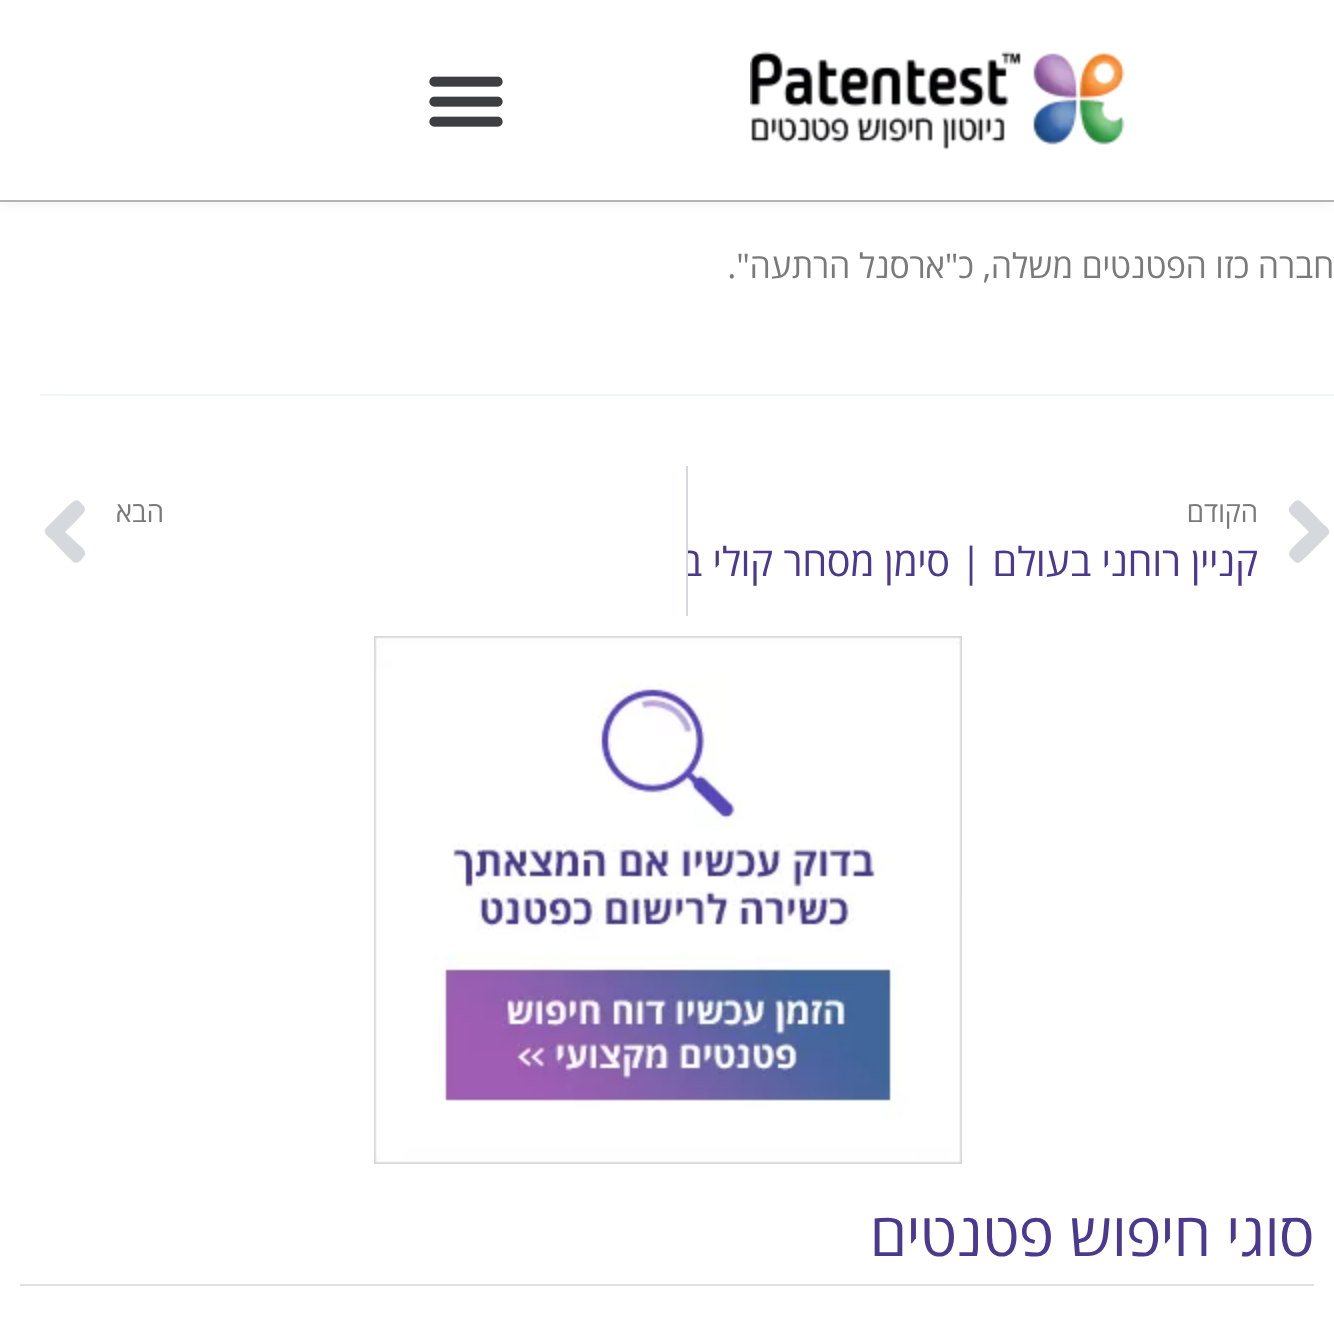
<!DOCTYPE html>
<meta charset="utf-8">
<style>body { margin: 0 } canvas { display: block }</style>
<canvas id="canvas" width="1334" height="1321"></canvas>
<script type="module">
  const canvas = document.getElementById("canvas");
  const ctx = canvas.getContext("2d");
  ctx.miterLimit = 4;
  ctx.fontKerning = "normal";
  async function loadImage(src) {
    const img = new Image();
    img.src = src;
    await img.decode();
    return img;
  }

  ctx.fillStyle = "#ffffff";
  ctx.fillRect(0, 0, 1334, 1321);
  ctx.fillStyle = "rgba(0, 0, 0, 0.26)";
  ctx.filter = "blur(10px)";
  ctx.beginPath();
  ctx.rect(0, -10, 1334, 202);
  ctx.fill();
  ctx.filter = "none";
  ctx.fillStyle = "#ffffff";
  ctx.fillRect(0, 0, 1334, 200);
  ctx.fillStyle = "#b3b3b3";
  ctx.fillRect(0, 200, 1334, 2);
  ctx.drawImage(await loadImage("img1.png"), 750, 51, 375, 99);
  ctx.drawImage(await loadImage("img2.png"), 429, 76, 74, 51);
  ctx.direction = "rtl";
  ctx.font = "34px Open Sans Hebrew";
  ctx.fillStyle = "#7a7a7a";
  ctx.fillText("חברה כזו הפטנטים משלה, כ\"ארסנל הרתעה\".", 1334, 278);
  ctx.fillStyle = "#f1f5f8";
  ctx.fillRect(40, 394, 1294, 2);
  ctx.fillStyle = "#d5d8dc";
  ctx.beginPath();
  ctx.moveTo(1328, 535);
  ctx.lineTo(1306, 557);
  ctx.bezierCurveTo(1303, 559, 1299, 565, 1295, 562);
  ctx.lineTo(1291, 558);
  ctx.bezierCurveTo(1286, 552, 1292, 549, 1296, 544);
  ctx.lineTo(1309, 532);
  ctx.lineTo(1296, 519);
  ctx.bezierCurveTo(1294, 517, 1287, 512, 1289, 508);
  ctx.lineTo(1293, 503);
  ctx.bezierCurveTo(1299, 497, 1301, 502, 1306, 506);
  ctx.lineTo(1323, 524);
  ctx.bezierCurveTo(1326, 526, 1332, 531, 1328, 535);
  ctx.closePath();
  ctx.fill();
  ctx.font = "28px Open Sans Hebrew";
  ctx.fillStyle = "#7a7a7a";
  ctx.fillText("הקודם", 1258, 522);
  ctx.save();
  ctx.beginPath();
  ctx.rect(688, 532, 570, 60);
  ctx.clip();
  ctx.font = "40px Open Sans Hebrew";
  ctx.fillStyle = "#4b398e";
  ctx.fillText("קניין רוחני בעולם | סימן מסחר קולי בהודו", 1258, 576);
  ctx.restore();
  ctx.fillStyle = "#d5d8dc";
  ctx.fillRect(686, 466, 2, 150);
  ctx.fillStyle = "#7a7a7a";
  ctx.fillText("הבא", 164, 522);
  ctx.fillStyle = "#d5d8dc";
  ctx.beginPath();
  ctx.moveTo(46, 528);
  ctx.lineTo(68, 506);
  ctx.bezierCurveTo(71, 504, 75, 498, 79, 501);
  ctx.lineTo(83, 505);
  ctx.bezierCurveTo(88, 511, 82, 514, 78, 519);
  ctx.lineTo(65, 532);
  ctx.lineTo(78, 544);
  ctx.bezierCurveTo(80, 546, 87, 551, 85, 555);
  ctx.lineTo(81, 560);
  ctx.bezierCurveTo(75, 566, 73, 561, 68, 557);
  ctx.lineTo(51, 539);
  ctx.bezierCurveTo(48, 537, 42, 532, 46, 528);
  ctx.closePath();
  ctx.fill();
  ctx.drawImage(await loadImage("img3.png"), 374, 636, 588, 528);
  ctx.font = "60px Open Sans Hebrew";
  ctx.fillStyle = "#4b398e";
  ctx.fillText("סוגי חיפוש פטנטים", 1314, 1256);
  ctx.fillStyle = "#e0e0e0";
  ctx.fillRect(20, 1284, 1294, 2);
</script>
